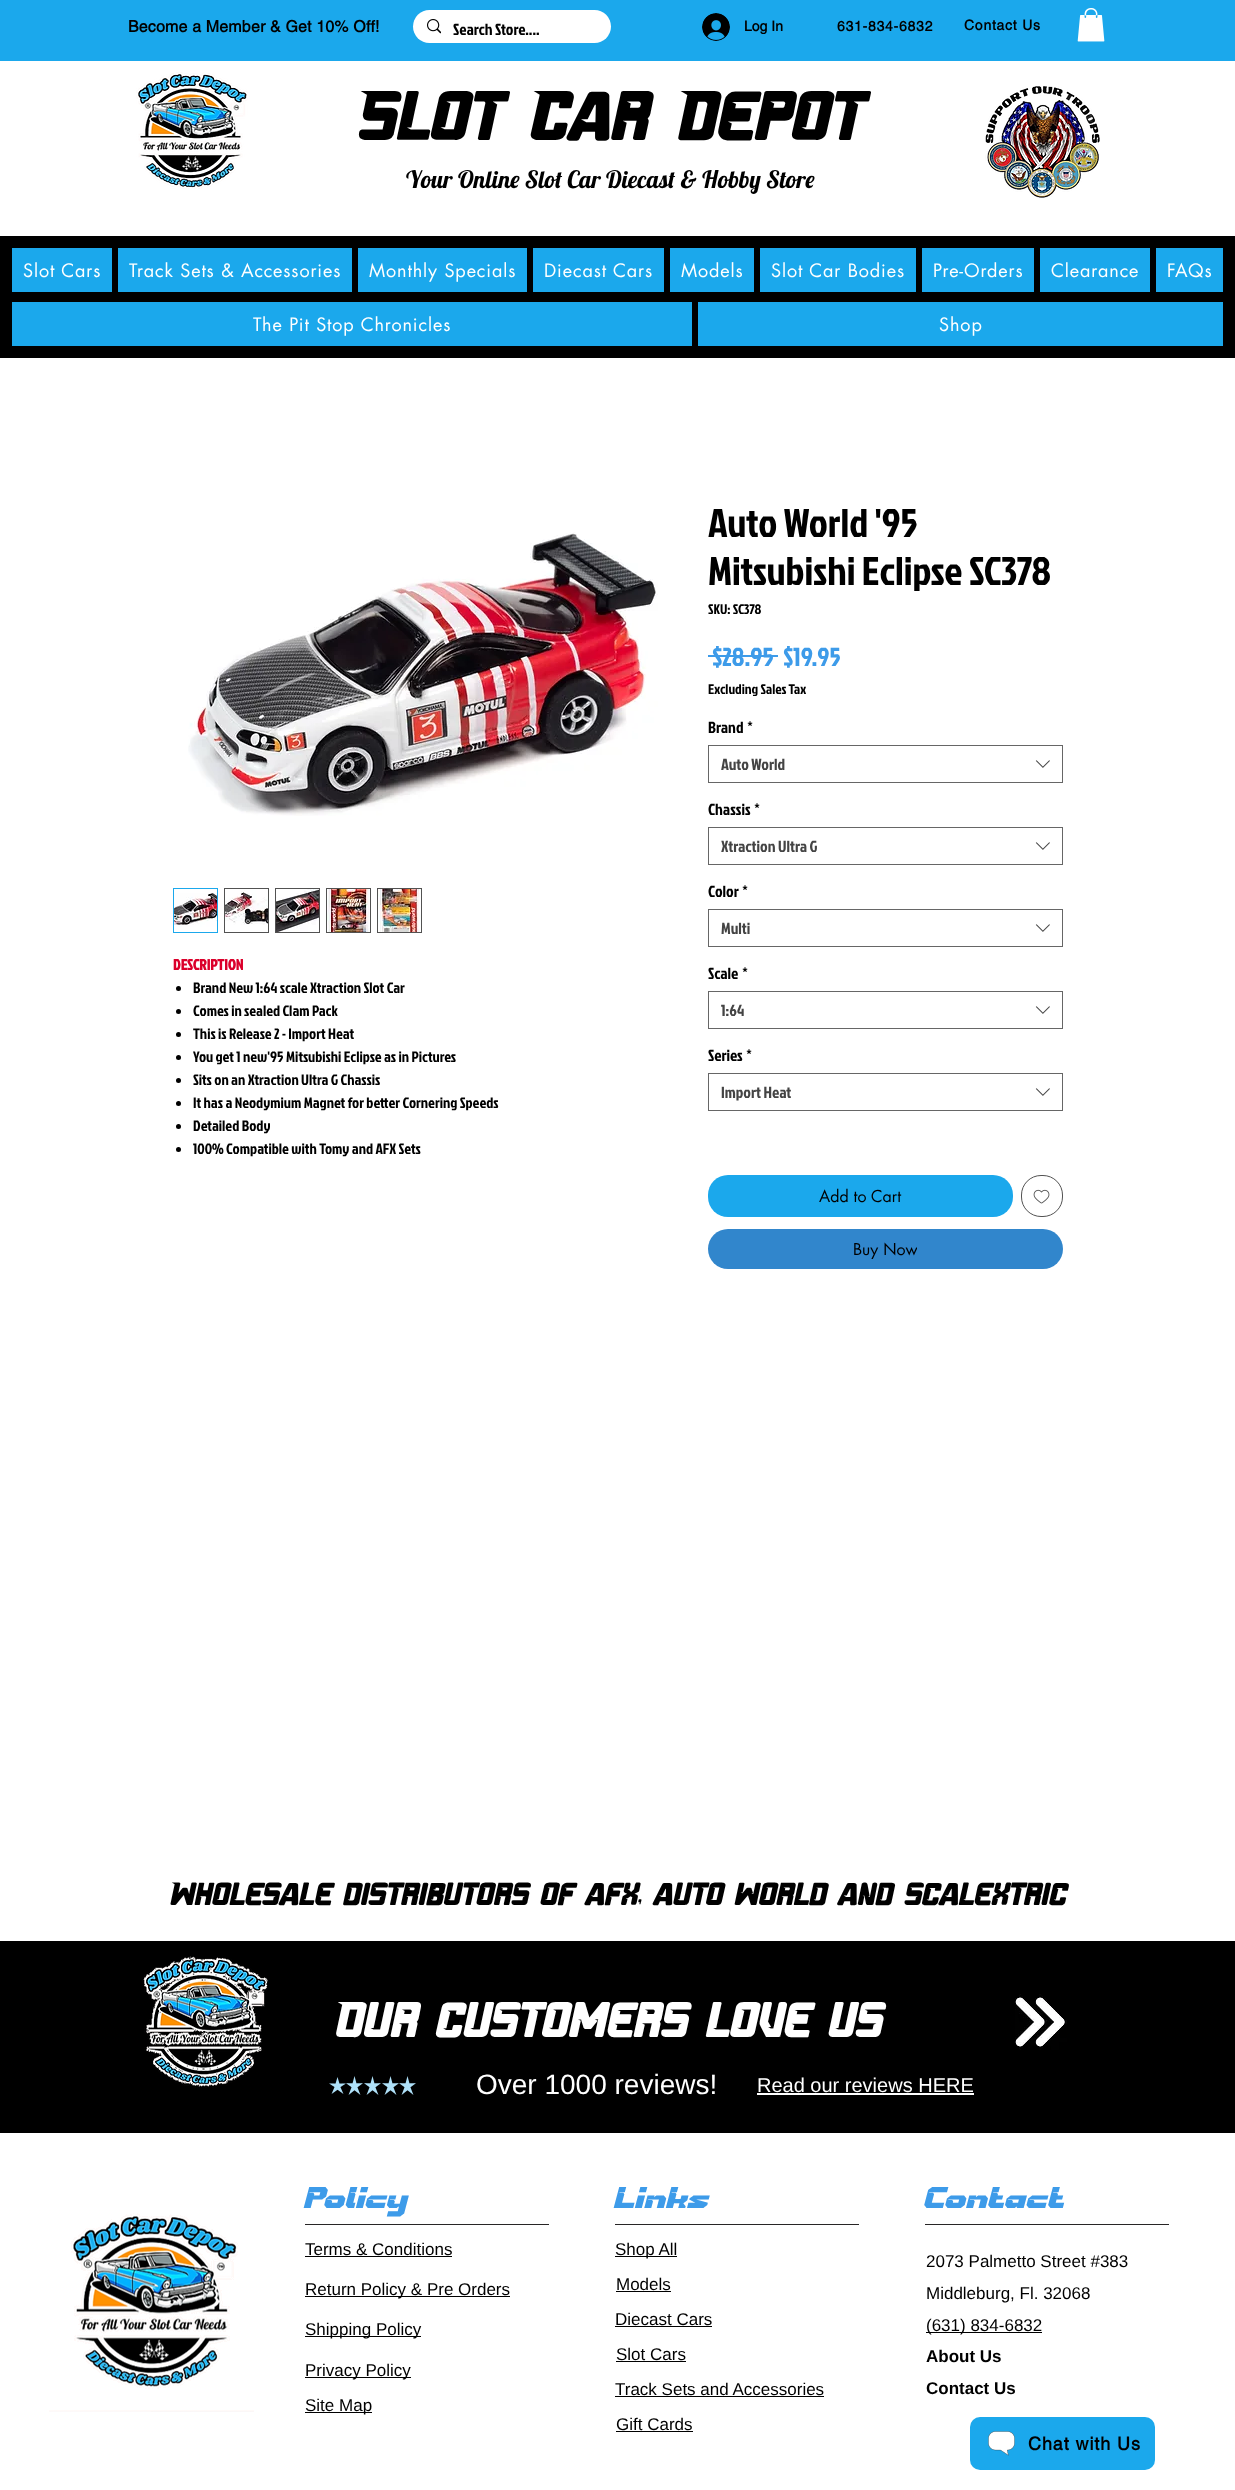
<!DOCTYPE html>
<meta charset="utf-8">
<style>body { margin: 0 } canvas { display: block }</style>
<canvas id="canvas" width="1235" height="2490"></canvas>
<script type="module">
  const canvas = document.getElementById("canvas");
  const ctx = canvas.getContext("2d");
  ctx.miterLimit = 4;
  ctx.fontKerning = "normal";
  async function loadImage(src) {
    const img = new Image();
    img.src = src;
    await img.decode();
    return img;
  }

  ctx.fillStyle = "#ffffff";
  ctx.fillRect(0, 0, 1235, 2490);
  ctx.fillStyle = "#1ba8ec";
  ctx.fillRect(0, 0, 1235, 61);
  ctx.letterSpacing = "0.15px";
  ctx.font = "bold 16px helvetica";
  ctx.fillStyle = "#000000";
  ctx.fillText("Become a Member & Get 10% Off!", 128, 32);
  ctx.fillStyle = "#ffffff";
  ctx.beginPath();
  ctx.roundRect(413, 10, 198, 33, 16.5);
  ctx.fill();
  ctx.drawImage(await loadImage("img1.png"), 427, 19, 14, 15);
  ctx.letterSpacing = "0px";
  ctx.font = "16px Jockey One";
  ctx.fillStyle = "#000000";
  ctx.fillText("Search Store....", 453, 35);
  ctx.drawImage(await loadImage("img2.png"), 702, 13, 28, 28);
  ctx.font = "bold 14px helvetica";
  ctx.fillText("Log In", 744, 31);
  ctx.letterSpacing = "0.75px";
  ctx.fillText("631-834-6832", 837, 31);
  ctx.fillText("Contact Us", 964, 30);
  ctx.drawImage(await loadImage("img3.png"), 1077, 8, 28, 34);
  ctx.drawImage(await loadImage("img4.png"), 136, 72, 112, 117);
  ctx.letterSpacing = "0px";
  ctx.font = "70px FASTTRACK";
  ctx.fillText("Slot Car Depot", 357, 140);
  ctx.drawImage(await loadImage("img5.png"), 985, 86, 115, 112);
  ctx.font = "24px Lobster";
  ctx.fillText("Your Online Slot Car Diecast & Hobby Store", 406, 188);
  ctx.fillRect(0, 236, 1235, 122);
  ctx.fillStyle = "#1ba8ec";
  ctx.fillRect(12, 248, 100, 44);
  ctx.letterSpacing = "0.9px";
  ctx.font = "18px futura";
  ctx.fillStyle = "#ffffff";
  ctx.fillText("Slot Cars", 23, 277);
  ctx.fillStyle = "#1ba8ec";
  ctx.fillRect(118, 248, 234, 44);
  ctx.fillStyle = "#ffffff";
  ctx.fillText("Track Sets & Accessories", 129, 277);
  ctx.fillStyle = "#1ba8ec";
  ctx.fillRect(358, 248, 169, 44);
  ctx.fillStyle = "#ffffff";
  ctx.fillText("Monthly Specials", 369, 277);
  ctx.fillStyle = "#1ba8ec";
  ctx.fillRect(533, 248, 131, 44);
  ctx.fillStyle = "#ffffff";
  ctx.fillText("Diecast Cars", 544, 277);
  ctx.fillStyle = "#1ba8ec";
  ctx.fillRect(670, 248, 84, 44);
  ctx.fillStyle = "#ffffff";
  ctx.fillText("Models", 681, 277);
  ctx.fillStyle = "#1ba8ec";
  ctx.fillRect(760, 248, 156, 44);
  ctx.fillStyle = "#ffffff";
  ctx.fillText("Slot Car Bodies", 771, 277);
  ctx.fillStyle = "#1ba8ec";
  ctx.fillRect(922, 248, 112, 44);
  ctx.fillStyle = "#ffffff";
  ctx.fillText("Pre-Orders", 933, 277);
  ctx.fillStyle = "#1ba8ec";
  ctx.fillRect(1040, 248, 110, 44);
  ctx.fillStyle = "#ffffff";
  ctx.fillText("Clearance", 1051, 277);
  ctx.fillStyle = "#1ba8ec";
  ctx.fillRect(1156, 248, 67, 44);
  ctx.fillStyle = "#ffffff";
  ctx.fillText("FAQs", 1167, 277);
  ctx.fillStyle = "#1ba8ec";
  ctx.fillRect(12, 302, 680, 44);
  ctx.fillStyle = "#ffffff";
  ctx.fillText("The Pit Stop Chronicles", 253, 331);
  ctx.fillStyle = "#1ba8ec";
  ctx.fillRect(698, 302, 525, 44);
  ctx.fillStyle = "#ffffff";
  ctx.fillText("Shop", 939, 331);
  ctx.drawImage(await loadImage("img6.png"), 188, 532, 470, 284);
  ctx.strokeStyle = "#1ba8ec";
  ctx.strokeRect(173.5, 888.5, 44, 44);
  ctx.drawImage(await loadImage("img7.png"), 174, 893, 43, 34);
  ctx.strokeStyle = "#525252";
  ctx.strokeRect(224.5, 888.5, 44, 44);
  ctx.drawImage(await loadImage("img8.png"), 225, 890, 43, 35);
  ctx.strokeRect(275.5, 888.5, 44, 44);
  ctx.drawImage(await loadImage("img9.png"), 276, 889, 43, 43);
  ctx.strokeRect(326.5, 888.5, 44, 44);
  ctx.drawImage(await loadImage("img10.png"), 327, 889, 43, 43);
  ctx.strokeRect(377.5, 888.5, 44, 44);
  ctx.drawImage(await loadImage("img11.png"), 378, 889, 43, 43);
  ctx.letterSpacing = "0px";
  ctx.font = "bold 15px Jockey One";
  ctx.fillStyle = "#db002b";
  ctx.fillText("DESCRIPTION", 173, 970);
  ctx.fillStyle = "#000000";
  ctx.beginPath();
  ctx.arc(178.5, 988.5, 2.5, 0, Math.PI * 2);
  ctx.fill();
  ctx.font = "15px Jockey One";
  ctx.fillText("Brand New 1:64 scale Xtraction Slot Car", 193, 993);
  ctx.beginPath();
  ctx.arc(178.5, 1011.5, 2.5, 0, Math.PI * 2);
  ctx.fill();
  ctx.fillText("Comes in sealed Clam Pack", 193, 1016);
  ctx.beginPath();
  ctx.arc(178.5, 1034.5, 2.5, 0, Math.PI * 2);
  ctx.fill();
  ctx.fillText("This is Release 2 - Import Heat", 193, 1039);
  ctx.beginPath();
  ctx.arc(178.5, 1057.5, 2.5, 0, Math.PI * 2);
  ctx.fill();
  ctx.fillText("You get 1 new'95 Mitsubishi Eclipse as in Pictures", 193, 1062);
  ctx.beginPath();
  ctx.arc(178.5, 1080.5, 2.5, 0, Math.PI * 2);
  ctx.fill();
  ctx.fillText("Sits on an Xtraction Ultra G Chassis", 193, 1085);
  ctx.beginPath();
  ctx.arc(178.5, 1103.5, 2.5, 0, Math.PI * 2);
  ctx.fill();
  ctx.fillText("It has a Neodymium Magnet for better Cornering Speeds", 193, 1108);
  ctx.beginPath();
  ctx.arc(178.5, 1126.5, 2.5, 0, Math.PI * 2);
  ctx.fill();
  ctx.fillText("Detailed Body", 193, 1131);
  ctx.beginPath();
  ctx.arc(178.5, 1149.5, 2.5, 0, Math.PI * 2);
  ctx.fill();
  ctx.fillText("100% Compatible with Tomy and AFX Sets", 193, 1154);
  ctx.font = "40px Jockey One";
  ctx.fillText("Auto World '95", 708, 537);
  ctx.fillText("Mitsubishi Eclipse SC378", 708, 585);
  ctx.font = "14px Jockey One";
  ctx.fillText("SKU: SC378", 708, 614);
  ctx.font = "26px Jockey One";
  ctx.fillStyle = "#3d9be9";
  ctx.fillText("$28.95", 712, 666);
  ctx.fillRect(708, 655, 70, 2);
  ctx.fillText("$19.95", 783, 666);
  ctx.font = "14px Jockey One";
  ctx.fillStyle = "#000000";
  ctx.fillText("Excluding Sales Tax", 708, 694);
  ctx.font = "16px Jockey One";
  ctx.fillText("Brand", 708, 733);
  ctx.fillText("*", 747, 733);
  ctx.strokeStyle = "#666666";
  ctx.strokeRect(708.5, 745.5, 354, 37);
  ctx.fillStyle = "#444444";
  ctx.fillText("Auto World", 721, 770);
  ctx.drawImage(await loadImage("img12.png"), 1035, 760, 15, 8);
  ctx.fillStyle = "#000000";
  ctx.fillText("Chassis", 708, 815);
  ctx.fillText("*", 754, 815);
  ctx.strokeRect(708.5, 827.5, 354, 37);
  ctx.fillStyle = "#444444";
  ctx.fillText("Xtraction Ultra G", 721, 852);
  ctx.drawImage(await loadImage("img12.png"), 1035, 842, 15, 8);
  ctx.fillStyle = "#000000";
  ctx.fillText("Color", 708, 897);
  ctx.fillText("*", 742, 897);
  ctx.strokeRect(708.5, 909.5, 354, 37);
  ctx.fillStyle = "#444444";
  ctx.fillText("Multi", 721, 934);
  ctx.drawImage(await loadImage("img12.png"), 1035, 924, 15, 8);
  ctx.fillStyle = "#000000";
  ctx.fillText("Scale", 708, 979);
  ctx.fillText("*", 742, 979);
  ctx.strokeRect(708.5, 991.5, 354, 37);
  ctx.save();
  ctx.beginPath();
  ctx.rect(721, 1000, 306, 20);
  ctx.clip();
  ctx.fillStyle = "#444444";
  ctx.fillText("1:64", 721, 1016);
  ctx.restore();
  ctx.drawImage(await loadImage("img12.png"), 1035, 1006, 15, 8);
  ctx.fillText("Series", 708, 1061);
  ctx.fillText("*", 746, 1061);
  ctx.strokeRect(708.5, 1073.5, 354, 37);
  ctx.fillStyle = "#444444";
  ctx.fillText("Import Heat", 721, 1098);
  ctx.drawImage(await loadImage("img12.png"), 1035, 1088, 15, 8);
  ctx.fillStyle = "#1ba8ec";
  ctx.beginPath();
  ctx.roundRect(708, 1175, 305, 42, 20);
  ctx.fill();
  ctx.font = "16px futura";
  ctx.fillStyle = "#000000";
  ctx.fillText("Add to Cart", 819, 1202);
  ctx.beginPath();
  ctx.roundRect(1021.5, 1175.5, 41, 41, 19.5);
  ctx.strokeStyle = "#525252";
  ctx.stroke();
  ctx.drawImage(await loadImage("img13.png"), 1033, 1189, 17, 15);
  ctx.fillStyle = "#3186cc";
  ctx.beginPath();
  ctx.roundRect(708, 1229, 355, 40, 20);
  ctx.fill();
  ctx.save();
  ctx.beginPath();
  ctx.rect(853, 1239, 64, 20);
  ctx.clip();
  ctx.fillStyle = "#000000";
  ctx.fillText("Buy Now", 853, 1255);
  ctx.restore();
  ctx.font = "32px FASTTRACK";
  ctx.fillStyle = "#000000";
  ctx.fillText("Wholesale distributors of afx, auto world and scalextric", 170, 1905);
  ctx.fillRect(0, 1941, 1235, 192);
  ctx.drawImage(await loadImage("img14.png"), 142, 1956, 126, 132);
  ctx.font = "50px FASTTRACK";
  ctx.fillStyle = "#ffffff";
  ctx.fillText("Our customers love us", 335, 2037);
  ctx.drawImage(await loadImage("img15.png"), 1015, 1994, 52, 56);
  ctx.drawImage(await loadImage("img16.png"), 329, 2077, 17, 17);
  ctx.drawImage(await loadImage("img17.png"), 346, 2076, 17, 19);
  ctx.drawImage(await loadImage("img17.png"), 364, 2076, 17, 19);
  ctx.drawImage(await loadImage("img17.png"), 382, 2076, 17, 19);
  ctx.drawImage(await loadImage("img17.png"), 399, 2076, 17, 19);
  ctx.font = "28px Liberation Sans";
  ctx.fillText("Over 1000 reviews!", 476, 2094);
  ctx.font = "20px Liberation Sans";
  ctx.fillText("Read our reviews HERE", 757, 2092);
  ctx.fillRect(757, 2093, 217, 2);
  ctx.drawImage(await loadImage("img18.png"), 49, 2213, 205, 199);
  ctx.font = "30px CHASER";
  ctx.fillStyle = "#3d9be9";
  ctx.fillText("Policy", 305, 2208);
  ctx.fillStyle = "#282626";
  ctx.fillRect(305, 2224, 244, 1);
  ctx.font = "17px Liberation Sans";
  ctx.fillStyle = "#000000";
  ctx.fillText("Terms & Conditions", 305, 2255);
  ctx.fillRect(305, 2256, 147, 1);
  ctx.fillRect(305, 2296, 205, 1);
  ctx.fillText("Return Policy & Pre Orders", 305, 2295);
  ctx.fillRect(305, 2336, 116, 1);
  ctx.fillText("Shipping Policy", 305, 2335);
  ctx.fillRect(305, 2377, 106, 1);
  ctx.fillText("Privacy Policy", 305, 2376);
  ctx.fillRect(305, 2412, 67, 1);
  ctx.fillText("Site Map", 305, 2411);
  ctx.font = "30px CHASER";
  ctx.fillStyle = "#3d9be9";
  ctx.fillText("Links", 615, 2208);
  ctx.fillStyle = "#282626";
  ctx.fillRect(615, 2224, 244, 1);
  ctx.fillStyle = "#000000";
  ctx.fillRect(615, 2256, 62, 1);
  ctx.font = "17px Liberation Sans";
  ctx.fillText("Shop All", 615, 2255);
  ctx.fillText("Models", 616, 2290);
  ctx.fillRect(616, 2291, 55, 1);
  ctx.fillText("Diecast Cars", 615, 2325);
  ctx.fillRect(615, 2326, 97, 1);
  ctx.fillText("Slot Cars", 616, 2360);
  ctx.fillRect(616, 2361, 70, 1);
  ctx.fillText("Track Sets and Accessories", 615, 2395);
  ctx.fillRect(615, 2396, 209, 1);
  ctx.fillText("Gift Cards", 616, 2430);
  ctx.fillRect(616, 2431, 77, 1);
  ctx.font = "30px CHASER";
  ctx.fillStyle = "#3d9be9";
  ctx.fillText("Contact", 925, 2208);
  ctx.fillStyle = "#282626";
  ctx.fillRect(925, 2224, 244, 1);
  ctx.font = "17px Liberation Sans";
  ctx.fillStyle = "#000000";
  ctx.fillText("2073 Palmetto Street #383", 926, 2267);
  ctx.fillText("Middleburg, Fl. 32068", 926, 2299);
  ctx.fillRect(926, 2332, 116, 1);
  ctx.fillText("(631) 834-6832", 926, 2331);
  ctx.font = "bold 17px Liberation Sans";
  ctx.fillText("About Us", 926, 2362);
  ctx.fillText("Contact Us", 926, 2394);
  ctx.fillStyle = "#1ba8ec";
  ctx.beginPath();
  ctx.roundRect(970, 2417, 185, 53, 10);
  ctx.fill();
  ctx.drawImage(await loadImage("img19.png"), 988, 2431, 27, 25);
  ctx.letterSpacing = "0.9px";
  ctx.font = "bold 18px helvetica";
  ctx.fillStyle = "#000000";
  ctx.fillText("Chat with Us", 1028, 2450);
</script>
